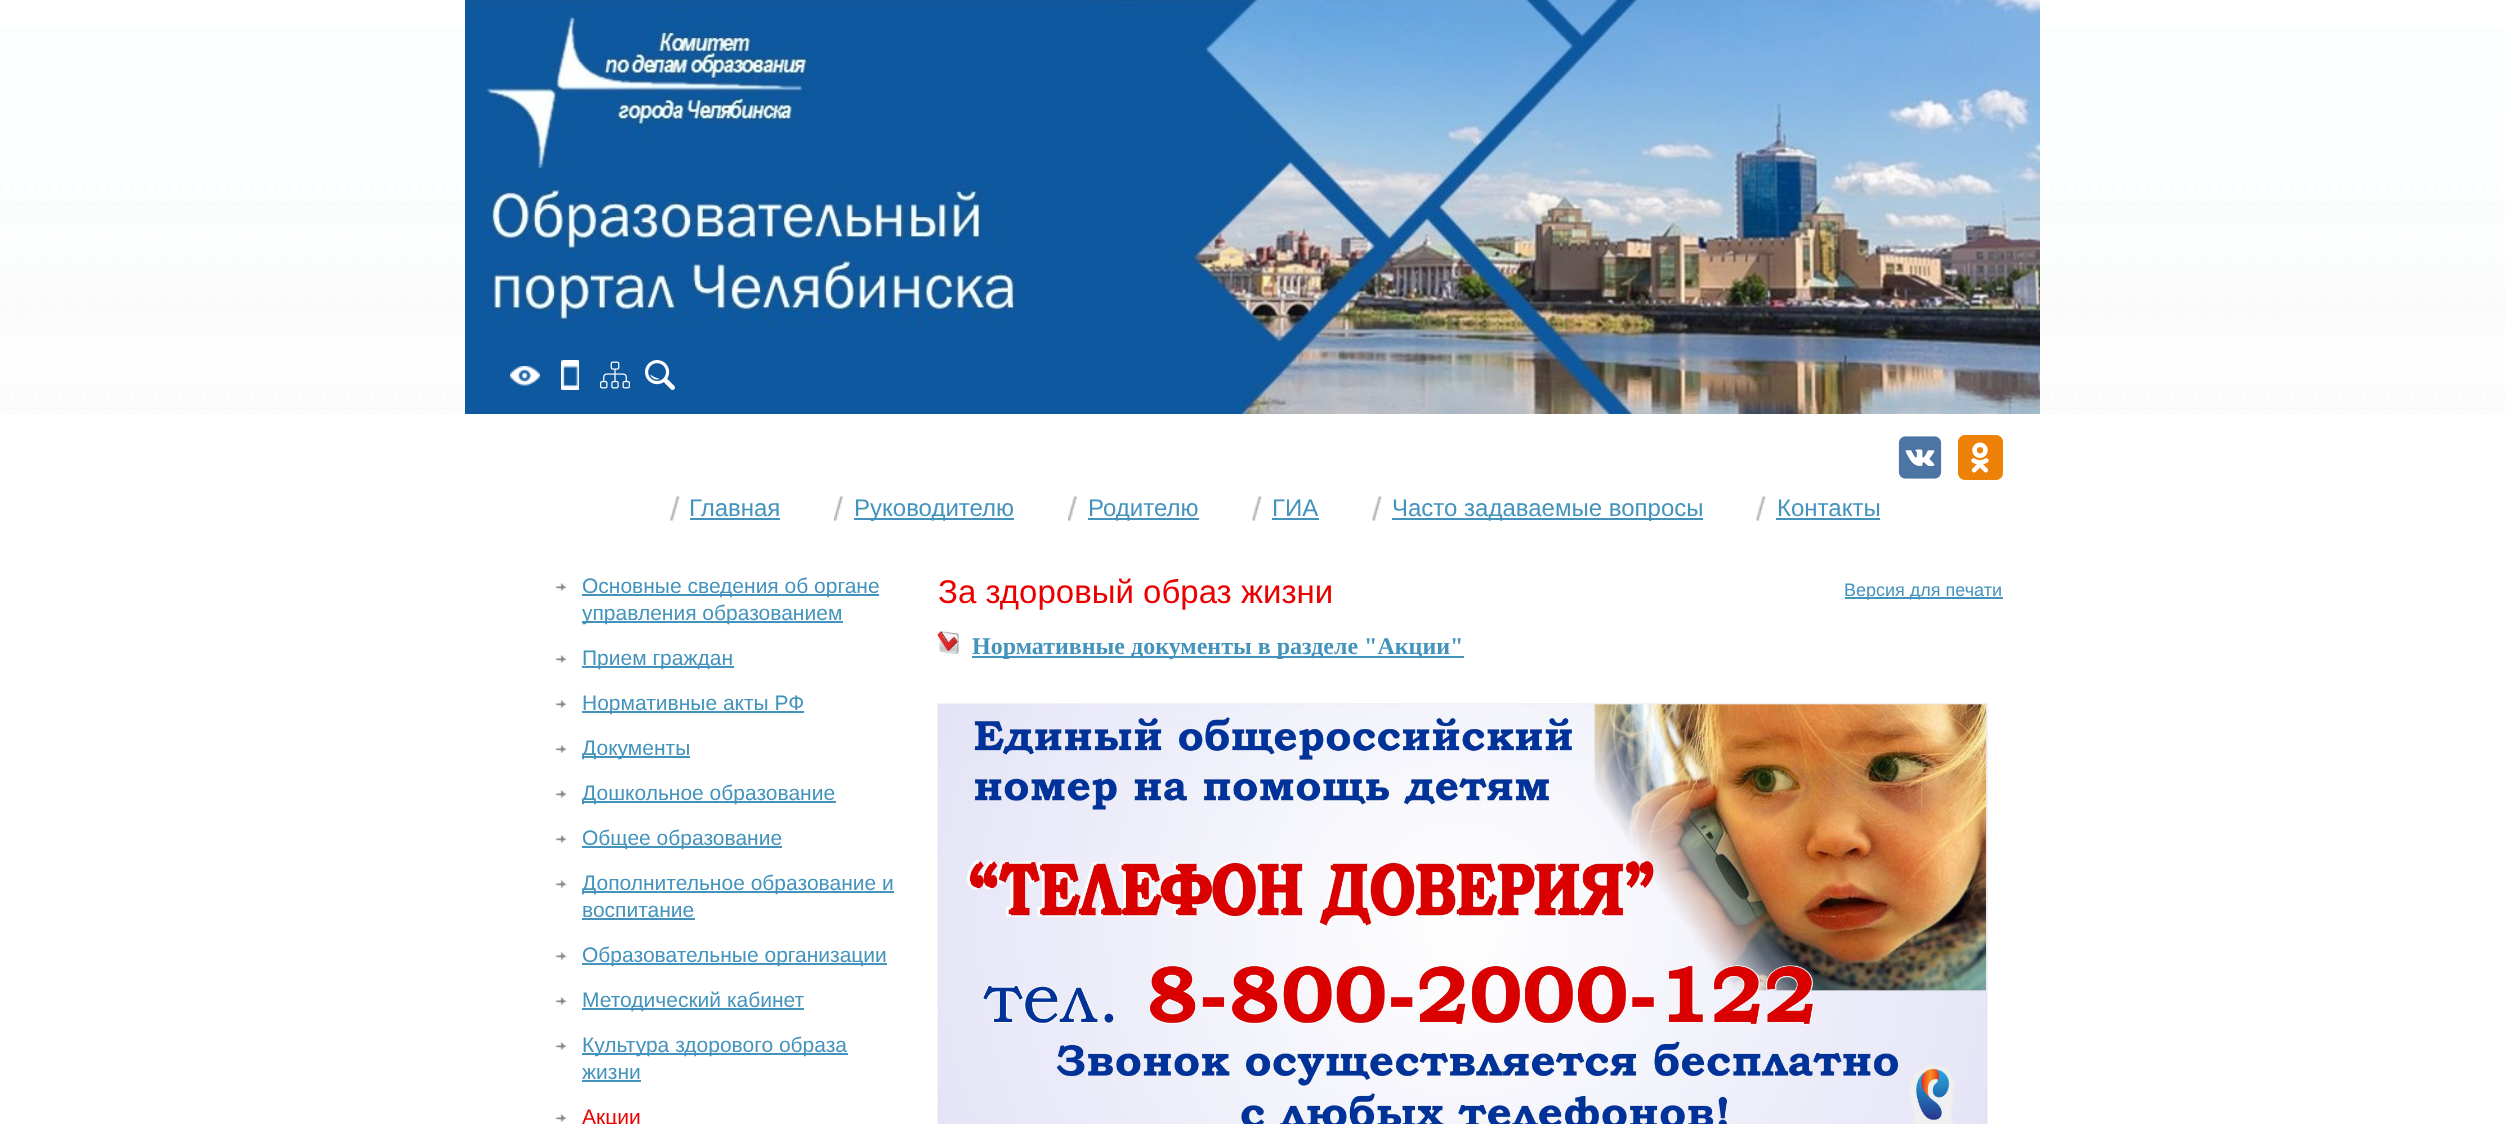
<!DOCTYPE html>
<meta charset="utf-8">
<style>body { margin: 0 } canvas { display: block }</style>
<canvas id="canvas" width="2505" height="1124"></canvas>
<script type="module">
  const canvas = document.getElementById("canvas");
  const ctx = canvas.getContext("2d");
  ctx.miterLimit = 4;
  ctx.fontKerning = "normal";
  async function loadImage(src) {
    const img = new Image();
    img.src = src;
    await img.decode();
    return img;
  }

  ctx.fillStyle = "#ffffff";
  ctx.fillRect(0, 0, 2505, 1124);
  ctx.drawImage(await loadImage("img1.png"), 0, 27, 2505, 387);
  ctx.drawImage(await loadImage("img2.png"), 465, 0, 1575, 414);
  ctx.drawImage(await loadImage("img3.png"), 510, 366, 30, 20);
  ctx.drawImage(await loadImage("img4.png"), 561, 360, 18, 30);
  ctx.drawImage(await loadImage("img5.png"), 600, 361, 30, 28);
  ctx.drawImage(await loadImage("img6.png"), 645, 360, 30, 30);
  ctx.drawImage(await loadImage("img7.png"), 1898, 436, 44, 43);
  ctx.drawImage(await loadImage("img8.png"), 1958, 435, 45, 45);
  ctx.drawImage(await loadImage("img9.png"), 670, 496, 10, 25);
  ctx.font = "24px Liberation Sans";
  ctx.fillStyle = "#4493bd";
  ctx.fillText("Главная", 689, 516);
  ctx.fillRect(690, 518, 90, 2);
  ctx.drawImage(await loadImage("img10.png"), 834, 496, 9, 25);
  ctx.fillRect(854, 518, 160, 2);
  ctx.fillText("Руководителю", 854, 516);
  ctx.drawImage(await loadImage("img11.png"), 1068, 496, 9, 25);
  ctx.fillRect(1088, 518, 111, 2);
  ctx.fillText("Родителю", 1088, 516);
  ctx.drawImage(await loadImage("img12.png"), 1252, 496, 10, 25);
  ctx.fillText("ГИА", 1272, 516);
  ctx.fillRect(1272, 518, 47, 2);
  ctx.drawImage(await loadImage("img9.png"), 1372, 496, 10, 25);
  ctx.fillRect(1392, 518, 311, 2);
  ctx.fillText("Часто задаваемые вопросы", 1392, 516);
  ctx.drawImage(await loadImage("img12.png"), 1756, 496, 10, 25);
  ctx.fillText("Контакты", 1777, 516);
  ctx.fillRect(1776, 518, 104, 2);
  ctx.drawImage(await loadImage("img13.png"), 555, 583, 12, 8);
  ctx.fillRect(582, 594, 297, 2);
  ctx.font = "21px Liberation Sans";
  ctx.fillText("Основные сведения об органе", 582, 593);
  ctx.fillRect(582, 621, 261, 2);
  ctx.fillText("управления образованием", 582, 620);
  ctx.drawImage(await loadImage("img13.png"), 555, 655, 12, 8);
  ctx.fillRect(582, 666, 152, 2);
  ctx.fillText("Прием граждан", 582, 665);
  ctx.drawImage(await loadImage("img13.png"), 555, 700, 12, 8);
  ctx.fillRect(582, 711, 222, 2);
  ctx.fillText("Нормативные акты РФ", 582, 710);
  ctx.drawImage(await loadImage("img13.png"), 555, 745, 12, 8);
  ctx.fillRect(582, 756, 108, 2);
  ctx.fillText("Документы", 582, 755);
  ctx.drawImage(await loadImage("img13.png"), 555, 790, 12, 8);
  ctx.fillRect(582, 801, 254, 2);
  ctx.fillText("Дошкольное образование", 582, 800);
  ctx.drawImage(await loadImage("img13.png"), 555, 835, 12, 8);
  ctx.fillRect(582, 846, 200, 2);
  ctx.fillText("Общее образование", 582, 845);
  ctx.drawImage(await loadImage("img13.png"), 555, 880, 12, 8);
  ctx.fillRect(582, 891, 312, 2);
  ctx.fillText("Дополнительное образование и", 582, 890);
  ctx.fillText("воспитание", 582, 917);
  ctx.fillRect(582, 918, 113, 2);
  ctx.drawImage(await loadImage("img13.png"), 555, 952, 12, 8);
  ctx.fillRect(582, 963, 305, 2);
  ctx.fillText("Образовательные организации", 582, 962);
  ctx.drawImage(await loadImage("img13.png"), 555, 997, 12, 8);
  ctx.fillRect(582, 1008, 222, 2);
  ctx.fillText("Методический кабинет", 582, 1007);
  ctx.drawImage(await loadImage("img13.png"), 555, 1042, 12, 8);
  ctx.fillRect(582, 1053, 266, 2);
  ctx.fillText("Культура здорового образа", 582, 1052);
  ctx.fillText("жизни", 582, 1079);
  ctx.fillRect(582, 1080, 59, 2);
  ctx.drawImage(await loadImage("img13.png"), 555, 1114, 12, 8);
  ctx.fillStyle = "#eb0000";
  ctx.fillText("Акции", 582, 1124);
  ctx.font = "33px Liberation Sans";
  ctx.fillText("За здоровый образ жизни", 938, 603);
  ctx.fillStyle = "#4493bd";
  ctx.fillRect(1845, 597, 158, 2);
  ctx.font = "18px Liberation Sans";
  ctx.fillText("Версия для печати", 1844, 596);
  ctx.drawImage(await loadImage("img14.png"), 937, 631, 22, 23);
  ctx.fillRect(972, 656, 492, 2);
  ctx.font = "bold 24px Liberation Serif";
  ctx.fillText("Нормативные документы в разделе \"Акции\"", 972, 654);
  ctx.drawImage(await loadImage("img15.png"), 937, 703, 1051, 421);
</script>
